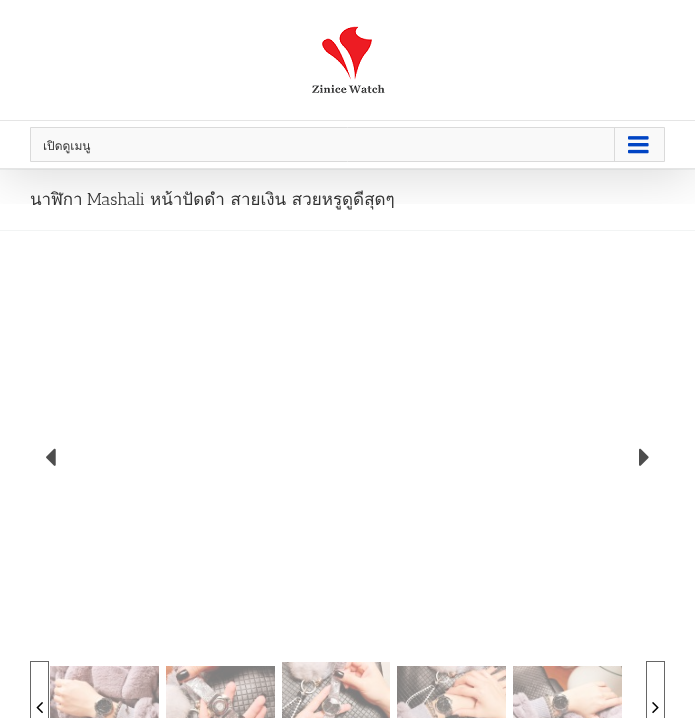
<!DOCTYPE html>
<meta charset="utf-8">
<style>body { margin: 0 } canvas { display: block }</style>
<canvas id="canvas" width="695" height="718"></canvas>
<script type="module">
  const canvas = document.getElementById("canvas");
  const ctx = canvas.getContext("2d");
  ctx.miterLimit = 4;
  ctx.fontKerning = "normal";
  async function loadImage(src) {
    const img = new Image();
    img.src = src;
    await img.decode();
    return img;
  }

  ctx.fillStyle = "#ffffff";
  ctx.fillRect(0, 0, 695, 718);
  ctx.fillStyle = "#f2f4f4";
  ctx.fillRect(0, 169, 695, 1);
  ctx.fillRect(0, 230, 695, 1);
  ctx.save();
  ctx.beginPath();
  ctx.rect(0, 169, 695, 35);
  ctx.clip();
  ctx.fillStyle = "rgba(0, 0, 0, 0.14)";
  ctx.filter = "blur(25px)";
  ctx.beginPath();
  ctx.rect(2, 12, 691, 165);
  ctx.fill();
  ctx.filter = "none";
  ctx.restore();
  ctx.fillStyle = "#e5e5e5";
  ctx.fillRect(0, 120, 695, 1);
  ctx.drawImage(await loadImage("img1.png"), 312, 26, 73, 68);
  ctx.fillRect(0, 168, 695, 1);
  ctx.fillStyle = "#f9f9f9";
  ctx.beginPath();
  ctx.rect(30.5, 127.5, 634, 34);
  ctx.fill();
  ctx.strokeStyle = "#dadada";
  ctx.stroke();
  ctx.font = "12px Loma";
  ctx.fillStyle = "#333333";
  ctx.fillText("เปิดดูเมนู", 43, 150);
  ctx.fillStyle = "#dadada";
  ctx.fillRect(614, 128, 1, 33);
  ctx.drawImage(await loadImage("img2.png"), 628, 136, 21, 18);
  ctx.font = "17px Loma";
  ctx.fillStyle = "#333333";
  ctx.fillText("นาฬิกา", 30, 205);
  ctx.font = "17px Antic Slab";
  ctx.fillText("Mashali", 87, 205);
  ctx.font = "17px Loma";
  ctx.fillText("หน้าปัดดำ สายเงิน สวยหรูดูดีสุดๆ", 150, 205);
  ctx.drawImage(await loadImage("img3.png"), 46, 448, 10, 18);
  ctx.drawImage(await loadImage("img4.png"), 639, 448, 10, 18);
  ctx.strokeStyle = "#666666";
  ctx.strokeRect(30.5, 661.5, 18, 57);
  ctx.drawImage(await loadImage("img5.png"), 36, 702, 7, 12);
  ctx.drawImage(await loadImage("img6.png"), 50, 666, 109, 52);
  ctx.drawImage(await loadImage("img7.png"), 166, 666, 109, 52);
  ctx.drawImage(await loadImage("img8.png"), 282, 662, 108, 56);
  ctx.drawImage(await loadImage("img9.png"), 397, 666, 109, 52);
  ctx.drawImage(await loadImage("img10.png"), 513, 666, 109, 52);
  ctx.strokeRect(646.5, 661.5, 18, 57);
  ctx.drawImage(await loadImage("img11.png"), 652, 702, 7, 12);
</script>
